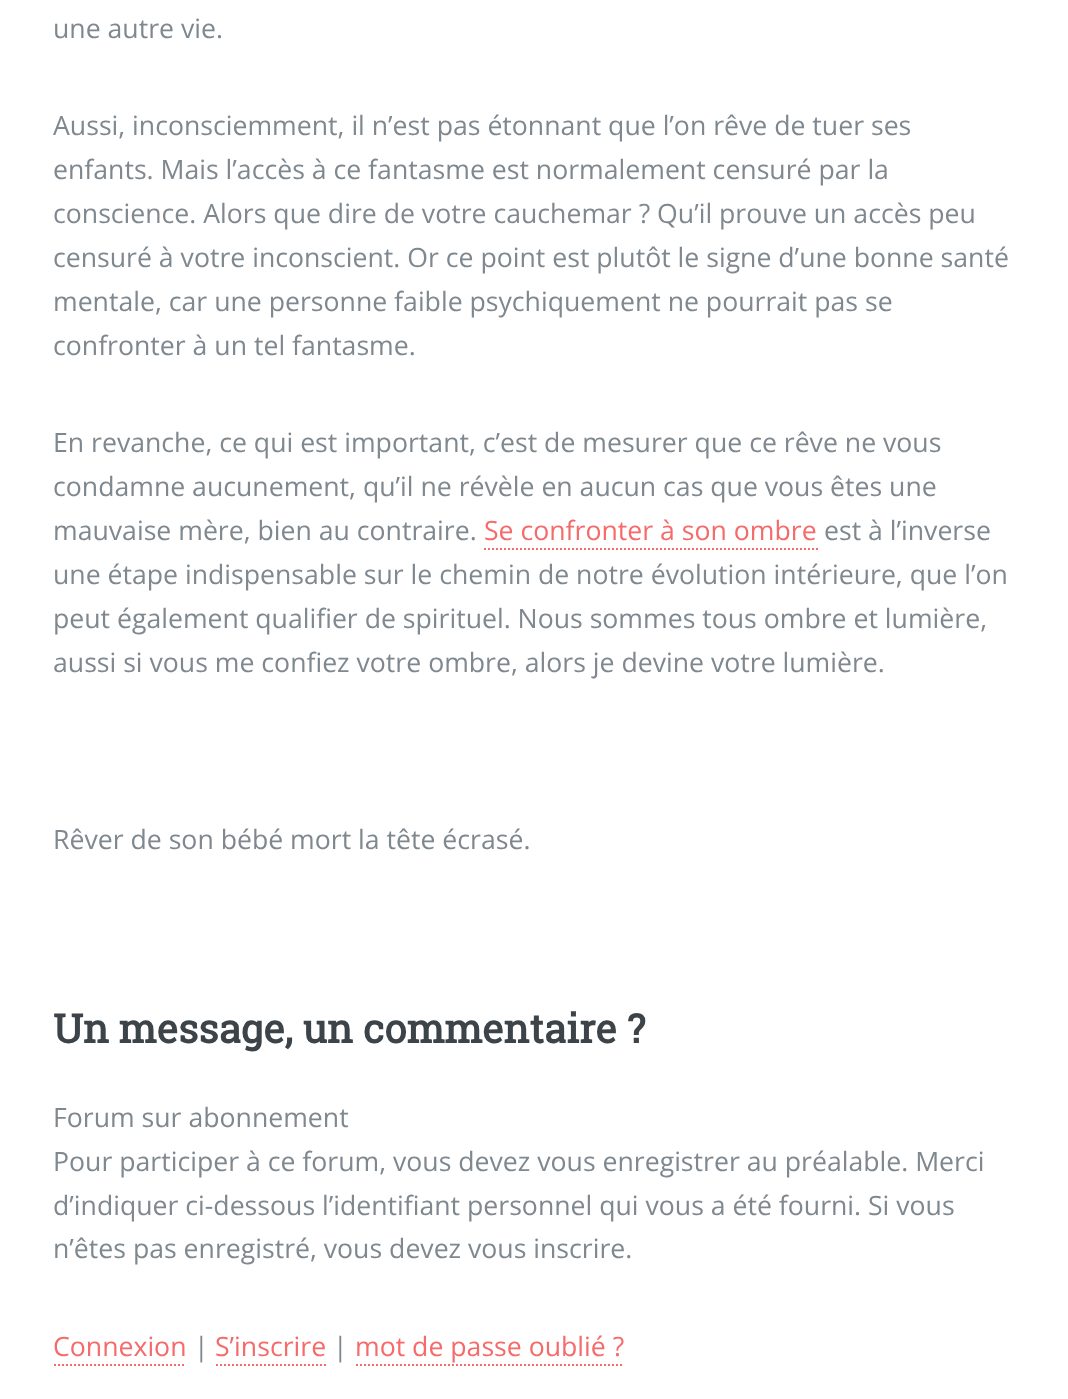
<!DOCTYPE html>
<meta charset="utf-8">
<style>body { margin: 0 } canvas { display: block }</style>
<canvas id="canvas" width="1068" height="1399"></canvas>
<script type="module">
  const canvas = document.getElementById("canvas");
  const ctx = canvas.getContext("2d");
  ctx.miterLimit = 4;
  ctx.fontKerning = "normal";

  ctx.fillStyle = "#ffffff";
  ctx.fillRect(0, 0, 1068, 1399);
  ctx.font = "26.65px Open Sans";
  ctx.fillStyle = "#7f888f";
  ctx.fillText("une autre vie.", 53, 38);
  ctx.fillText("Aussi, inconsciemment, il n’est pas étonnant que l’on rêve de tuer ses", 53, 135);
  ctx.fillText("enfants. Mais l’accès à ce fantasme est normalement censuré par la", 53, 179);
  ctx.fillText("conscience. Alors que dire de votre cauchemar ? Qu’il prouve un accès peu", 53, 223);
  ctx.fillText("censuré à votre inconscient. Or ce point est plutôt le signe d’une bonne santé", 53, 267);
  ctx.fillText("mentale, car une personne faible psychiquement ne pourrait pas se", 53, 311);
  ctx.fillText("confronter à un tel fantasme.", 53, 355);
  ctx.fillText("En revanche, ce qui est important, c’est de mesurer que ce rêve ne vous", 53, 452);
  ctx.fillText("condamne aucunement, qu’il ne révèle en aucun cas que vous êtes une", 53, 496);
  ctx.fillText("mauvaise mère, bien au contraire.", 53, 540);
  ctx.fillStyle = "#f56a6a";
  ctx.fillText("Se confronter à son ombre", 484, 540);
  ctx.beginPath();
  ctx.moveTo(484, 549);
  ctx.lineTo(818, 549);
  ctx.strokeStyle = "#f56a6a";
  ctx.lineWidth = 2;
  ctx.setLineDash([2, 2]);
  ctx.stroke();
  ctx.fillStyle = "#7f888f";
  ctx.fillText("est à l’inverse", 824, 540);
  ctx.fillText("une étape indispensable sur le chemin de notre évolution intérieure, que l’on", 53, 584);
  ctx.fillText("peut également qualifier de spirituel. Nous sommes tous ombre et lumière,", 53, 628);
  ctx.fillText("aussi si vous me confiez votre ombre, alors je devine votre lumière.", 53, 672);
  ctx.fillText("Rêver de son bébé mort la tête écrasé.", 53, 849);
  ctx.font = "bold 40px Roboto Slab";
  ctx.fillStyle = "#3d4449";
  ctx.fillText("Un message, un commentaire ?", 53, 1043);
  ctx.font = "26.65px Open Sans";
  ctx.fillStyle = "#7f888f";
  ctx.fillText("Forum sur abonnement", 53, 1127);
  ctx.fillText("Pour participer à ce forum, vous devez vous enregistrer au préalable. Merci", 53, 1171);
  ctx.fillText("d’indiquer ci-dessous l’identifiant personnel qui vous a été fourni. Si vous", 53, 1215);
  ctx.fillText("n’êtes pas enregistré, vous devez vous inscrire.", 53, 1258);
  ctx.fillStyle = "#f56a6a";
  ctx.fillText("Connexion", 53, 1356);
  ctx.beginPath();
  ctx.moveTo(54, 1365);
  ctx.lineTo(186, 1365);
  ctx.stroke();
  ctx.fillStyle = "#7f888f";
  ctx.fillText("|", 194, 1356);
  ctx.fillStyle = "#f56a6a";
  ctx.fillText("S’inscrire", 215, 1356);
  ctx.beginPath();
  ctx.moveTo(216, 1365);
  ctx.lineTo(326, 1365);
  ctx.stroke();
  ctx.fillStyle = "#7f888f";
  ctx.fillText("|", 333, 1356);
  ctx.fillStyle = "#f56a6a";
  ctx.fillText("mot de passe oublié ?", 355, 1356);
  ctx.beginPath();
  ctx.moveTo(356, 1365);
  ctx.lineTo(624, 1365);
  ctx.stroke();
</script>
